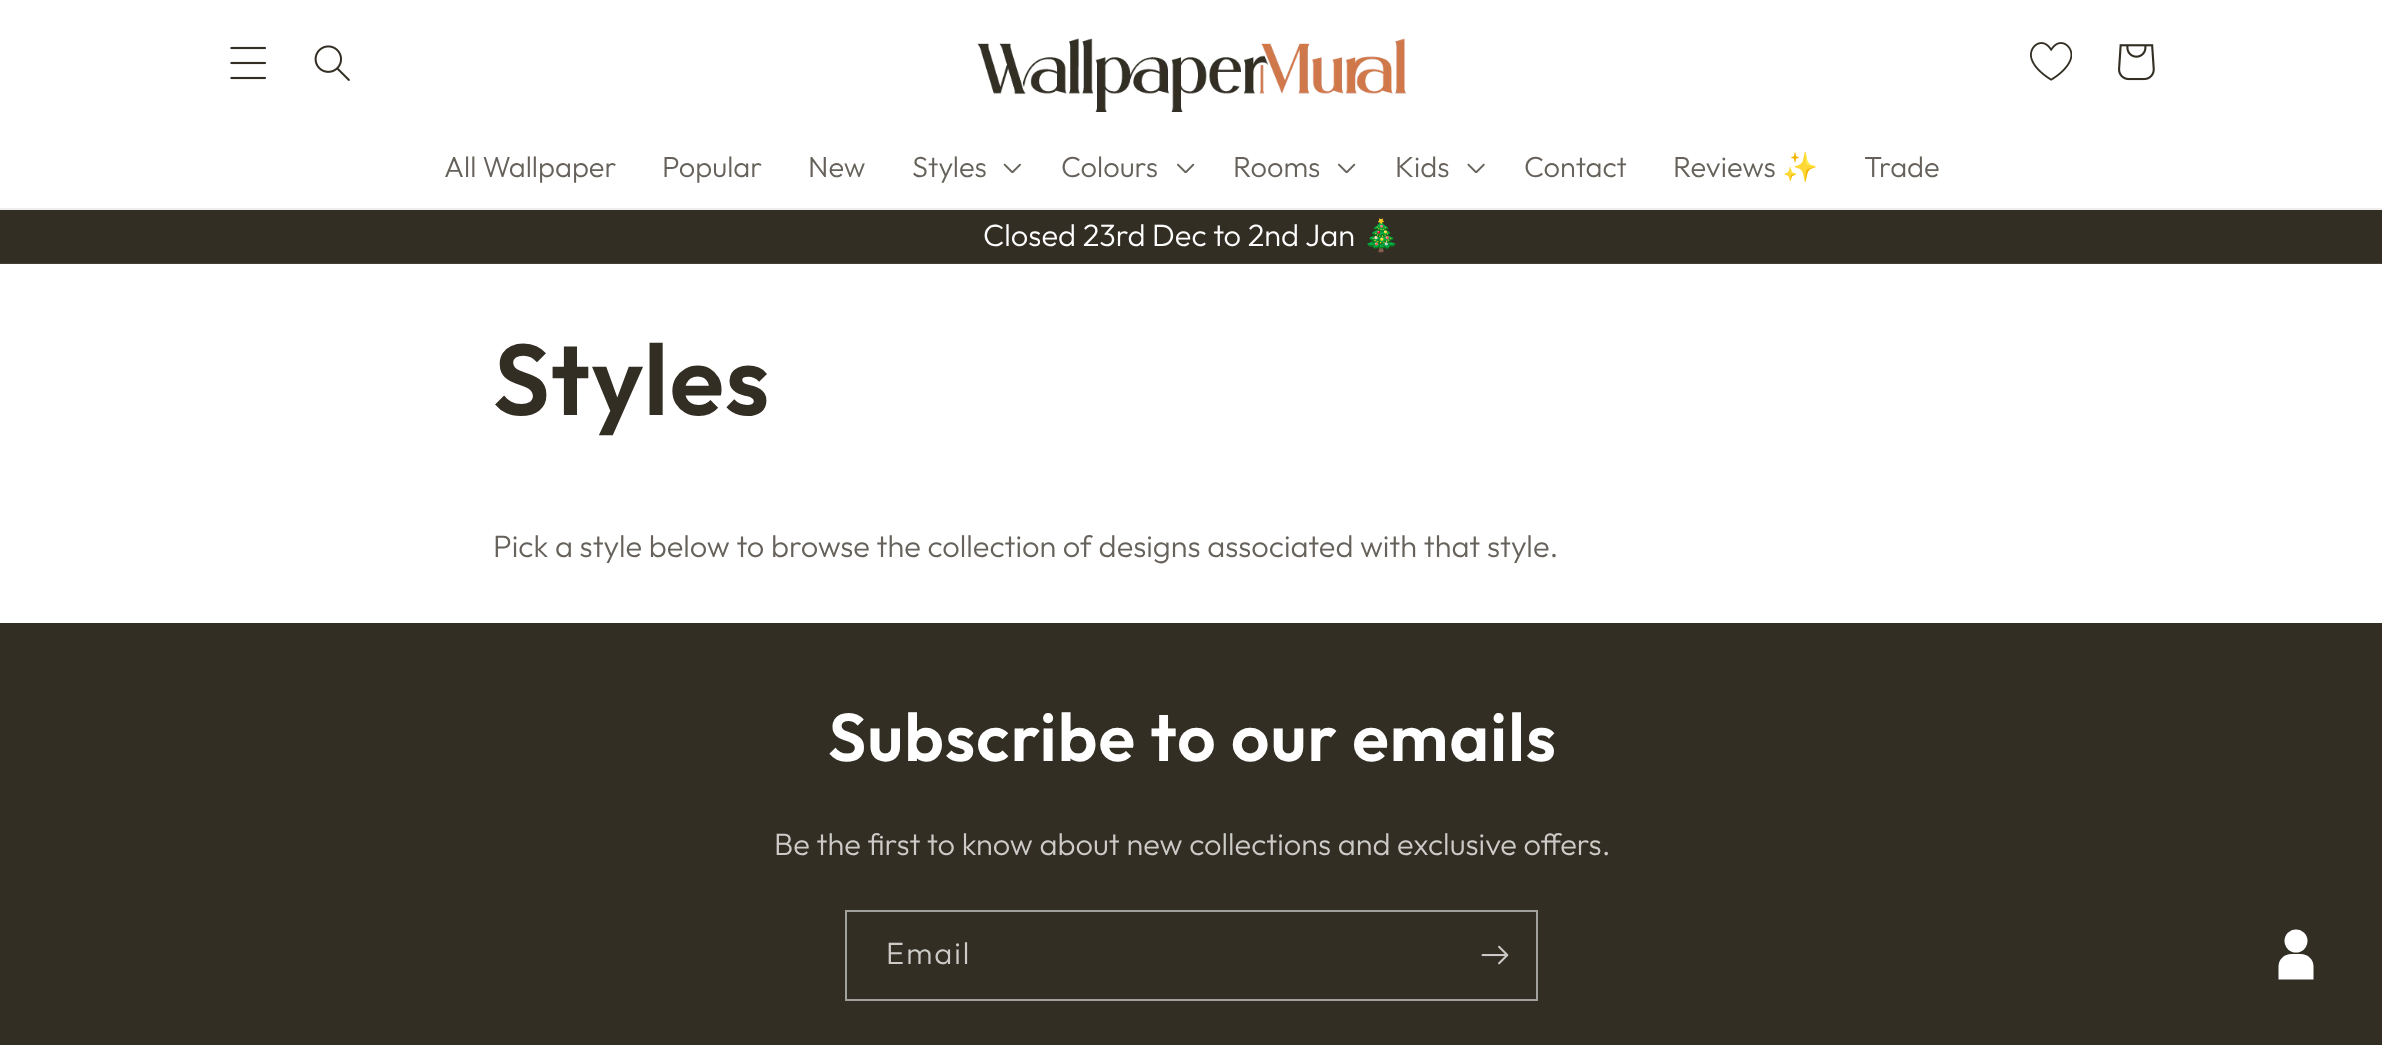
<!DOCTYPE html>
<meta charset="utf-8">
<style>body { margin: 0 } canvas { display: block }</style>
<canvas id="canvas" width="2382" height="1045"></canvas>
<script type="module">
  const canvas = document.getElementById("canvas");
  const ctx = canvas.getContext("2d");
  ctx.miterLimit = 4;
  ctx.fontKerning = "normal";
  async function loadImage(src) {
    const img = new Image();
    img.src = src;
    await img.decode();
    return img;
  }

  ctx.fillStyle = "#ffffff";
  ctx.fillRect(0, 0, 2382, 1045);
  ctx.fillStyle = "#efeeed";
  ctx.fillRect(0, 208, 2382, 2);
  ctx.drawImage(await loadImage("img1.png"), 230, 46, 36, 34);
  ctx.drawImage(await loadImage("img2.png"), 314, 45, 36, 36);
  ctx.drawImage(await loadImage("img3.png"), 977, 38, 429, 74);
  ctx.drawImage(await loadImage("img4.png"), 2030, 42, 42, 39);
  ctx.drawImage(await loadImage("img5.png"), 2118, 44, 37, 37);
  ctx.font = "300 29px Outfit";
  ctx.fillStyle = "#66625b";
  ctx.fillText("All Wallpaper", 444, 177);
  ctx.fillText("Popular", 662, 177);
  ctx.fillText("New", 808, 177);
  ctx.fillText("Styles", 912, 177);
  ctx.drawImage(await loadImage("img6.png"), 1003, 163, 18, 10);
  ctx.fillText("Colours", 1061, 177);
  ctx.drawImage(await loadImage("img7.png"), 1177, 163, 18, 10);
  ctx.fillText("Rooms", 1233, 177);
  ctx.drawImage(await loadImage("img7.png"), 1338, 163, 18, 10);
  ctx.fillText("Kids", 1395, 177);
  ctx.drawImage(await loadImage("img8.png"), 1467, 163, 18, 10);
  ctx.fillText("Contact", 1524, 177);
  ctx.fillText("Reviews", 1673, 177);
  ctx.font = "29px Noto Color Emoji";
  ctx.fillText("✨", 1782, 177);
  ctx.font = "300 29px Outfit";
  ctx.fillText("Trade", 1864, 177);
  ctx.fillStyle = "#332e24";
  ctx.fillRect(0, 210, 2382, 53);
  ctx.fillStyle = "#433f36";
  ctx.fillRect(0, 263, 2382, 1);
  ctx.font = "300 30.8px Outfit";
  ctx.fillStyle = "#ffffff";
  ctx.fillText("Closed 23rd Dec to 2nd Jan", 983, 246);
  ctx.font = "30.8px Noto Color Emoji";
  ctx.fillText("🎄", 1362, 246);
  ctx.letterSpacing = "1.2px";
  ctx.font = "600 100px Outfit";
  ctx.fillStyle = "#332e24";
  ctx.fillText("Styles", 493, 415);
  ctx.letterSpacing = "0px";
  ctx.font = "300 30.8px Outfit";
  ctx.fillStyle = "#66625b";
  ctx.fillText("Pick a style below to browse the collection of designs associated with that style.", 493, 557);
  ctx.fillStyle = "#332e24";
  ctx.fillRect(0, 623, 2382, 422);
  ctx.letterSpacing = "1.2px";
  ctx.font = "600 67.4px Outfit";
  ctx.fillStyle = "#ffffff";
  ctx.fillText("Subscribe to our emails", 828, 761);
  ctx.letterSpacing = "0px";
  ctx.font = "300 30.8px Outfit";
  ctx.fillStyle = "#cccbc8";
  ctx.fillText("Be the first to know about new collections and exclusive offers.", 774, 855);
  ctx.strokeStyle = "#a3a19c";
  ctx.lineWidth = 2;
  ctx.strokeRect(846, 911, 691, 89);
  ctx.letterSpacing = "2px";
  ctx.fillText("Email", 886, 964);
  ctx.drawImage(await loadImage("img9.png"), 1481, 945, 28, 20);
  ctx.fillStyle = "#ffffff";
  ctx.beginPath();
  ctx.arc(2296, 941, 11.5, 0, Math.PI * 2);
  ctx.fill();
  ctx.beginPath();
  ctx.moveTo(2300.5, 954);
  ctx.lineTo(2291.5, 954);
  ctx.bezierCurveTo(2284, 954, 2278.5, 959.5, 2278.5, 966.5);
  ctx.lineTo(2278.5, 979.5);
  ctx.lineTo(2313.5, 979.5);
  ctx.lineTo(2313.5, 966.5);
  ctx.bezierCurveTo(2313.5, 959.5, 2308, 954, 2300.5, 954);
  ctx.closePath();
  ctx.fill();
</script>
